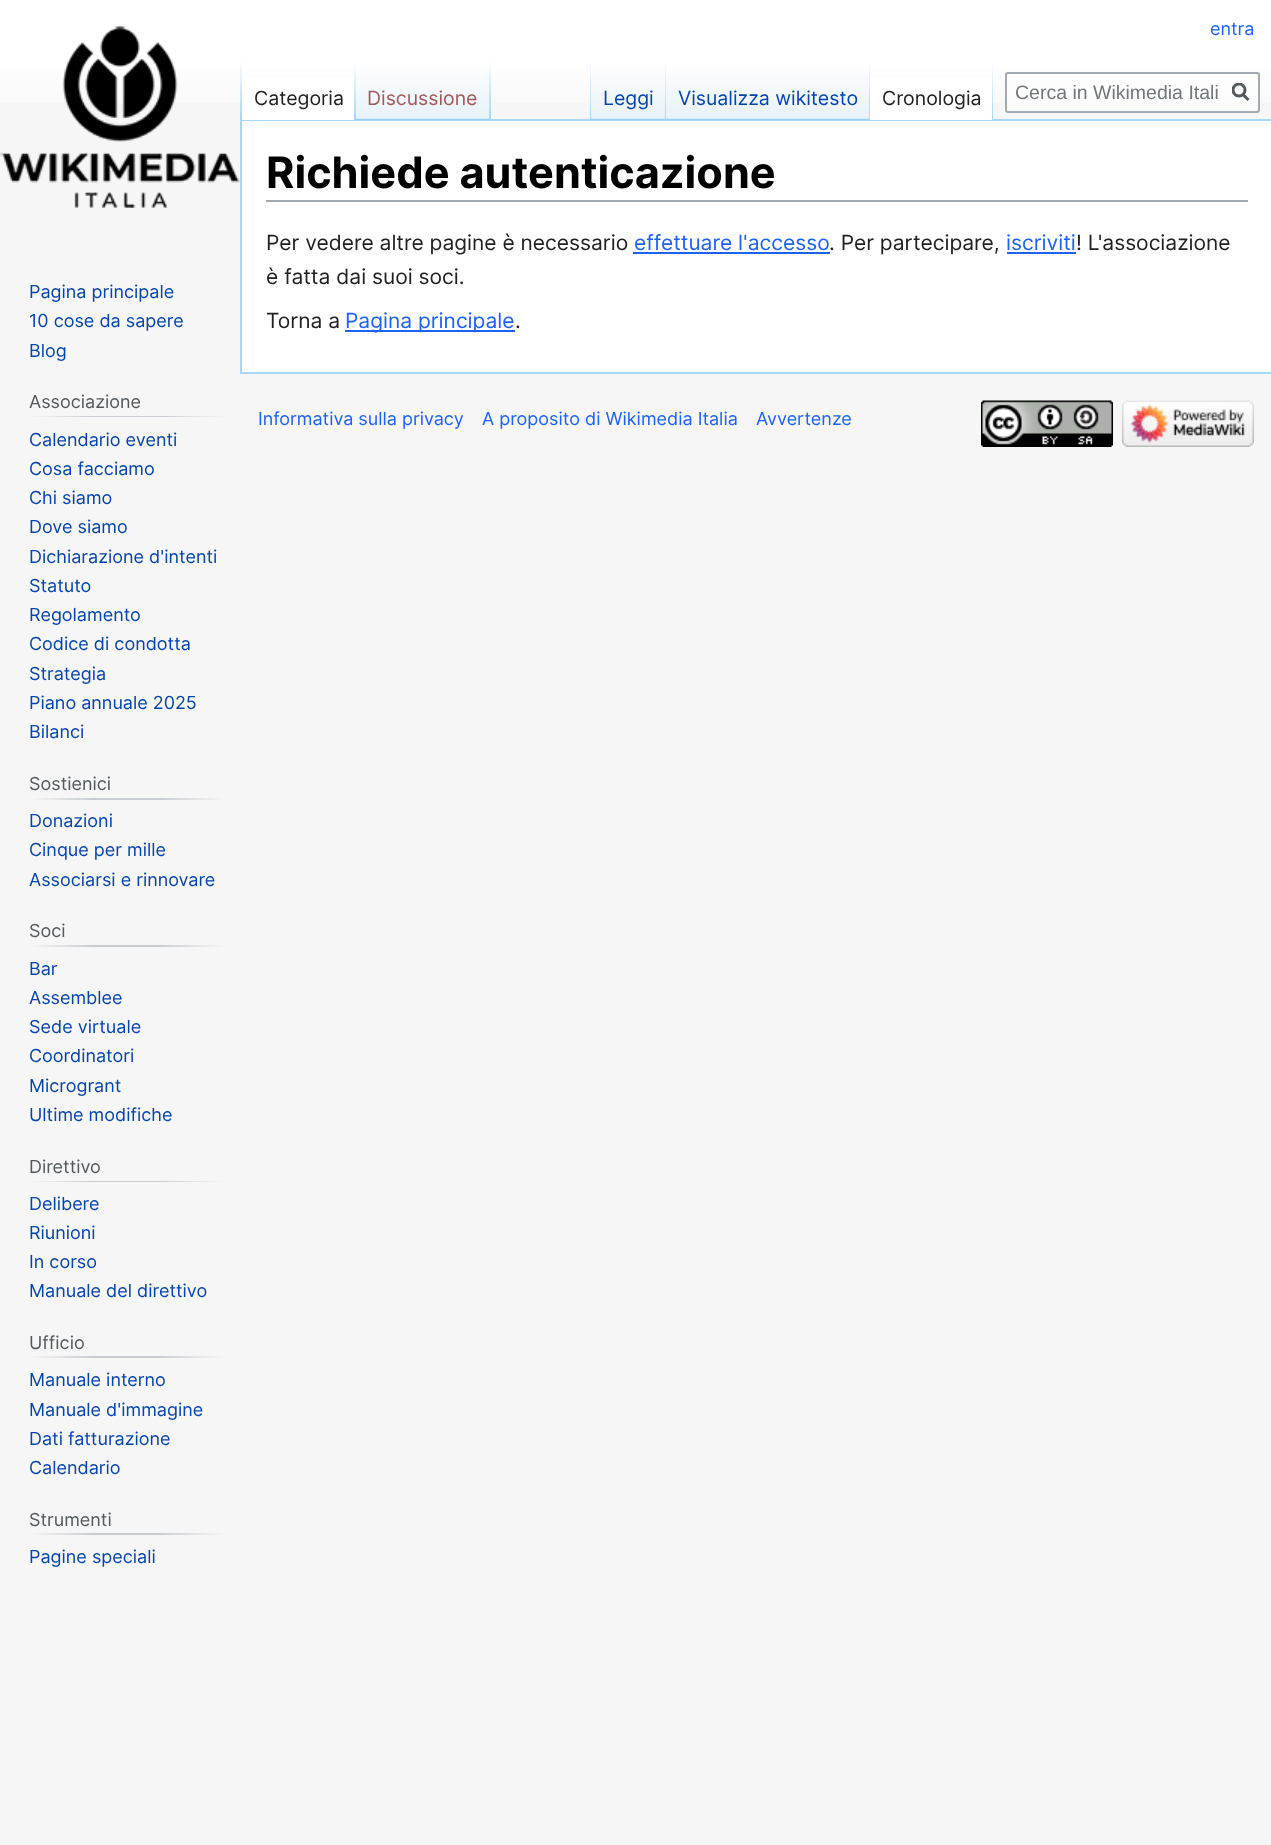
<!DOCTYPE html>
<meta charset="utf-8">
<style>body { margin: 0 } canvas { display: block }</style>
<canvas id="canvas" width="1271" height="1845"></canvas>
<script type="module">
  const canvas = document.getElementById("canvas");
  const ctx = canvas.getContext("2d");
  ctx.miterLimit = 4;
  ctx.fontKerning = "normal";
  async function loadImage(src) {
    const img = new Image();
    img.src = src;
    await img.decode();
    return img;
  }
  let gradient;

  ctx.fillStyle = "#f6f6f6";
  ctx.fillRect(0, 0, 1271, 1845);
  gradient = ctx.createLinearGradient(636, 0, 636, 120);
  gradient.addColorStop(0.5, "#ffffff");
  gradient.addColorStop(1, "#f6f6f6");
  ctx.fillStyle = gradient;
  ctx.fillRect(0, 0, 1271, 103);
  ctx.font = "18px Inter";
  ctx.fillStyle = "#1c63f5";
  ctx.fillText("entra", 1210, 35);
  ctx.fillStyle = "#a7d7f9";
  ctx.fillRect(240, 119, 1031, 2);
  ctx.fillRect(240, 372, 1031, 2);
  ctx.fillRect(240, 119, 2, 255);
  gradient = ctx.createLinearGradient(241, 60, 241, 120);
  gradient.addColorStop(0, "rgba(167, 215, 249, 0)");
  gradient.addColorStop(1, "#a7d7f9");
  ctx.fillStyle = gradient;
  ctx.fillRect(240, 60, 2, 60);
  ctx.fillStyle = "#ffffff";
  ctx.fillRect(242, 77, 112, 43);
  gradient = ctx.createLinearGradient(355, 60, 355, 120);
  gradient.addColorStop(0, "#ffffff");
  gradient.addColorStop(1, "#a7d7f9");
  ctx.fillStyle = gradient;
  ctx.fillRect(354, 60, 2, 60);
  ctx.font = "19.5px Inter";
  ctx.fillStyle = "#202122";
  ctx.fillText("Categoria", 254, 105);
  gradient = ctx.createLinearGradient(423, 120, 423, 60);
  gradient.addColorStop(0, "#77c1f6");
  gradient.addColorStop(0.03, "#e8f2f8");
  gradient.addColorStop(1, "#ffffff");
  ctx.fillStyle = gradient;
  ctx.fillRect(356, 69, 135, 51);
  gradient = ctx.createLinearGradient(490, 60, 490, 120);
  gradient.addColorStop(0, "rgba(167, 215, 249, 0)");
  gradient.addColorStop(1, "#a7d7f9");
  ctx.fillStyle = gradient;
  ctx.fillRect(489, 60, 2, 60);
  ctx.fillStyle = "#a55858";
  ctx.fillText("Discussione", 367, 105);
  gradient = ctx.createLinearGradient(590, 60, 590, 120);
  gradient.addColorStop(0, "rgba(167, 215, 249, 0)");
  gradient.addColorStop(1, "#a7d7f9");
  ctx.fillStyle = gradient;
  ctx.fillRect(590, 60, 1, 60);
  gradient = ctx.createLinearGradient(629, 120, 629, 60);
  gradient.addColorStop(0, "#77c1f6");
  gradient.addColorStop(0.03, "#e8f2f8");
  gradient.addColorStop(1, "#ffffff");
  ctx.fillStyle = gradient;
  ctx.fillRect(591, 69, 75, 51);
  gradient = ctx.createLinearGradient(665, 60, 665, 120);
  gradient.addColorStop(0, "rgba(167, 215, 249, 0)");
  gradient.addColorStop(1, "#a7d7f9");
  ctx.fillStyle = gradient;
  ctx.fillRect(665, 60, 1, 60);
  ctx.fillStyle = "#0645ad";
  ctx.fillText("Leggi", 603, 105);
  gradient = ctx.createLinearGradient(768, 120, 768, 60);
  gradient.addColorStop(0, "#77c1f6");
  gradient.addColorStop(0.03, "#e8f2f8");
  gradient.addColorStop(1, "#ffffff");
  ctx.fillStyle = gradient;
  ctx.fillRect(666, 69, 204, 51);
  gradient = ctx.createLinearGradient(869, 60, 869, 120);
  gradient.addColorStop(0, "rgba(167, 215, 249, 0)");
  gradient.addColorStop(1, "#a7d7f9");
  ctx.fillStyle = gradient;
  ctx.fillRect(869, 60, 1, 60);
  ctx.fillStyle = "#0645ad";
  ctx.fillText("Visualizza wikitesto", 678, 105);
  ctx.fillStyle = "#ffffff";
  ctx.fillRect(870, 77, 122, 43);
  gradient = ctx.createLinearGradient(992, 60, 992, 120);
  gradient.addColorStop(0, "#ffffff");
  gradient.addColorStop(1, "#a7d7f9");
  ctx.fillStyle = gradient;
  ctx.fillRect(992, 60, 1, 60);
  ctx.fillStyle = "#202122";
  ctx.fillText("Cronologia", 882, 105);
  ctx.fillStyle = "rgba(255, 255, 255, 0.5)";
  ctx.beginPath();
  ctx.roundRect(1006, 73, 253, 39, 2);
  ctx.fill();
  ctx.strokeStyle = "#a2a9b1";
  ctx.lineWidth = 2;
  ctx.stroke();
  ctx.font = "19.5px Liberation Sans";
  ctx.fillStyle = "#72777d";
  ctx.fillText("Cerca in Wikimedia Itali", 1015, 99);
  ctx.beginPath();
  ctx.moveTo(1248.5, 100);
  ctx.lineTo(1242.5, 94);
  ctx.strokeStyle = "#54595d";
  ctx.lineWidth = 3;
  ctx.stroke();
  ctx.save();
  ctx.beginPath();
  ctx.rect(1232, 83, 18, 19);
  ctx.clip();
  ctx.beginPath();
  ctx.arc(1239, 90, 6, 0, Math.PI * 2);
  ctx.stroke();
  ctx.restore();
  ctx.drawImage(await loadImage("img1.png"), 0, 26, 240, 182);
  ctx.font = "18px Inter";
  ctx.fillStyle = "#0645ad";
  ctx.fillText("Pagina principale", 29, 298);
  ctx.fillText("10 cose da sapere", 29, 327);
  ctx.fillText("Blog", 29, 357);
  gradient = ctx.createLinearGradient(29, 416, 225, 416);
  gradient.addColorStop(0, "#f6f6f6");
  gradient.addColorStop(0.33, "#c8ccd1");
  gradient.addColorStop(0.66, "#c8ccd1");
  gradient.addColorStop(1, "#f6f6f6");
  ctx.fillStyle = gradient;
  ctx.fillRect(29, 416, 196, 1);
  ctx.fillStyle = "#54595d";
  ctx.fillText("Associazione", 29, 408);
  ctx.fillStyle = "#0645ad";
  ctx.fillText("Calendario eventi", 29, 446);
  ctx.fillText("Cosa facciamo", 29, 475);
  ctx.fillText("Chi siamo", 29, 504);
  ctx.fillText("Dove siamo", 29, 533);
  ctx.fillText("Dichiarazione d'intenti", 29, 563);
  ctx.fillText("Statuto", 29, 592);
  ctx.fillText("Regolamento", 29, 621);
  ctx.fillText("Codice di condotta", 29, 650);
  ctx.fillText("Strategia", 29, 680);
  ctx.fillText("Piano annuale 2025", 29, 709);
  ctx.fillText("Bilanci", 29, 738);
  gradient = ctx.createLinearGradient(29, 799, 225, 799);
  gradient.addColorStop(0, "#f6f6f6");
  gradient.addColorStop(0.33, "#c8ccd1");
  gradient.addColorStop(0.66, "#c8ccd1");
  gradient.addColorStop(1, "#f6f6f6");
  ctx.fillStyle = gradient;
  ctx.fillRect(29, 798, 196, 2);
  ctx.fillStyle = "#54595d";
  ctx.fillText("Sostienici", 29, 790);
  ctx.fillStyle = "#0645ad";
  ctx.fillText("Donazioni", 29, 827);
  ctx.fillText("Cinque per mille", 29, 856);
  ctx.fillText("Associarsi e rinnovare", 29, 886);
  gradient = ctx.createLinearGradient(29, 946, 225, 946);
  gradient.addColorStop(0, "#f6f6f6");
  gradient.addColorStop(0.33, "#c8ccd1");
  gradient.addColorStop(0.66, "#c8ccd1");
  gradient.addColorStop(1, "#f6f6f6");
  ctx.fillStyle = gradient;
  ctx.fillRect(29, 945, 196, 2);
  ctx.fillStyle = "#54595d";
  ctx.fillText("Soci", 29, 937);
  ctx.fillStyle = "#0645ad";
  ctx.fillText("Bar", 29, 975);
  ctx.fillText("Assemblee", 29, 1004);
  ctx.fillText("Sede virtuale", 29, 1033);
  ctx.fillText("Coordinatori", 29, 1062);
  ctx.fillText("Microgrant", 29, 1092);
  ctx.fillText("Ultime modifiche", 29, 1121);
  gradient = ctx.createLinearGradient(29, 1181, 225, 1181);
  gradient.addColorStop(0, "#f6f6f6");
  gradient.addColorStop(0.33, "#c8ccd1");
  gradient.addColorStop(0.66, "#c8ccd1");
  gradient.addColorStop(1, "#f6f6f6");
  ctx.fillStyle = gradient;
  ctx.fillRect(29, 1181, 196, 1);
  ctx.fillStyle = "#54595d";
  ctx.fillText("Direttivo", 29, 1173);
  ctx.fillStyle = "#0645ad";
  ctx.fillText("Delibere", 29, 1210);
  ctx.fillText("Riunioni", 29, 1239);
  ctx.fillText("In corso", 29, 1268);
  ctx.fillText("Manuale del direttivo", 29, 1297);
  gradient = ctx.createLinearGradient(29, 1357, 225, 1357);
  gradient.addColorStop(0, "#f6f6f6");
  gradient.addColorStop(0.33, "#c8ccd1");
  gradient.addColorStop(0.66, "#c8ccd1");
  gradient.addColorStop(1, "#f6f6f6");
  ctx.fillStyle = gradient;
  ctx.fillRect(29, 1356, 196, 2);
  ctx.fillStyle = "#54595d";
  ctx.fillText("Ufficio", 29, 1349);
  ctx.fillStyle = "#0645ad";
  ctx.fillText("Manuale interno", 29, 1386);
  ctx.fillText("Manuale d'immagine", 29, 1416);
  ctx.fillText("Dati fatturazione", 29, 1445);
  ctx.fillText("Calendario", 29, 1474);
  gradient = ctx.createLinearGradient(29, 1534, 225, 1534);
  gradient.addColorStop(0, "#f6f6f6");
  gradient.addColorStop(0.33, "#c8ccd1");
  gradient.addColorStop(0.66, "#c8ccd1");
  gradient.addColorStop(1, "#f6f6f6");
  ctx.fillStyle = gradient;
  ctx.fillRect(29, 1533, 196, 2);
  ctx.fillStyle = "#54595d";
  ctx.fillText("Strumenti", 29, 1526);
  ctx.fillStyle = "#0645ad";
  ctx.fillText("Pagine speciali", 29, 1563);
  ctx.fillStyle = "#ffffff";
  ctx.fillRect(242, 121, 1029, 251);
  ctx.fillStyle = "#a2a9b1";
  ctx.fillRect(266, 200, 982, 2);
  ctx.font = "bold 43.25px Inter";
  ctx.fillStyle = "#000000";
  ctx.fillText("Richiede autenticazione", 266, 188);
  ctx.font = "21px Inter";
  ctx.fillStyle = "#202122";
  ctx.fillText("Per vedere altre pagine è necessario", 266, 250);
  ctx.fillStyle = "#1c63f5";
  ctx.fillText("effettuare l'accesso", 634, 250);
  ctx.fillRect(633, 252, 197, 2);
  ctx.fillStyle = "#202122";
  ctx.fillText(". Per partecipare,", 829, 250);
  ctx.fillStyle = "#1c63f5";
  ctx.fillText("iscriviti", 1006, 250);
  ctx.fillRect(1007, 252, 69, 2);
  ctx.fillStyle = "#202122";
  ctx.fillText("! L'associazione", 1076, 250);
  ctx.fillText("è fatta dai suoi soci.", 266, 284);
  ctx.fillText("Torna a", 266, 328);
  ctx.fillStyle = "#1c63f5";
  ctx.fillRect(345, 330, 170, 2);
  ctx.fillText("Pagina principale", 345, 328);
  ctx.fillStyle = "#202122";
  ctx.fillText(".", 515, 328);
  ctx.font = "18px Inter";
  ctx.fillStyle = "#1c63f5";
  ctx.fillText("Informativa sulla privacy", 258, 425);
  ctx.fillText("A proposito di Wikimedia Italia", 482, 425);
  ctx.fillText("Avvertenze", 756, 425);
  ctx.drawImage(await loadImage("img2.png"), 981, 400, 132, 47);
  ctx.drawImage(await loadImage("img3.png"), 1122, 400, 132, 47);
</script>
